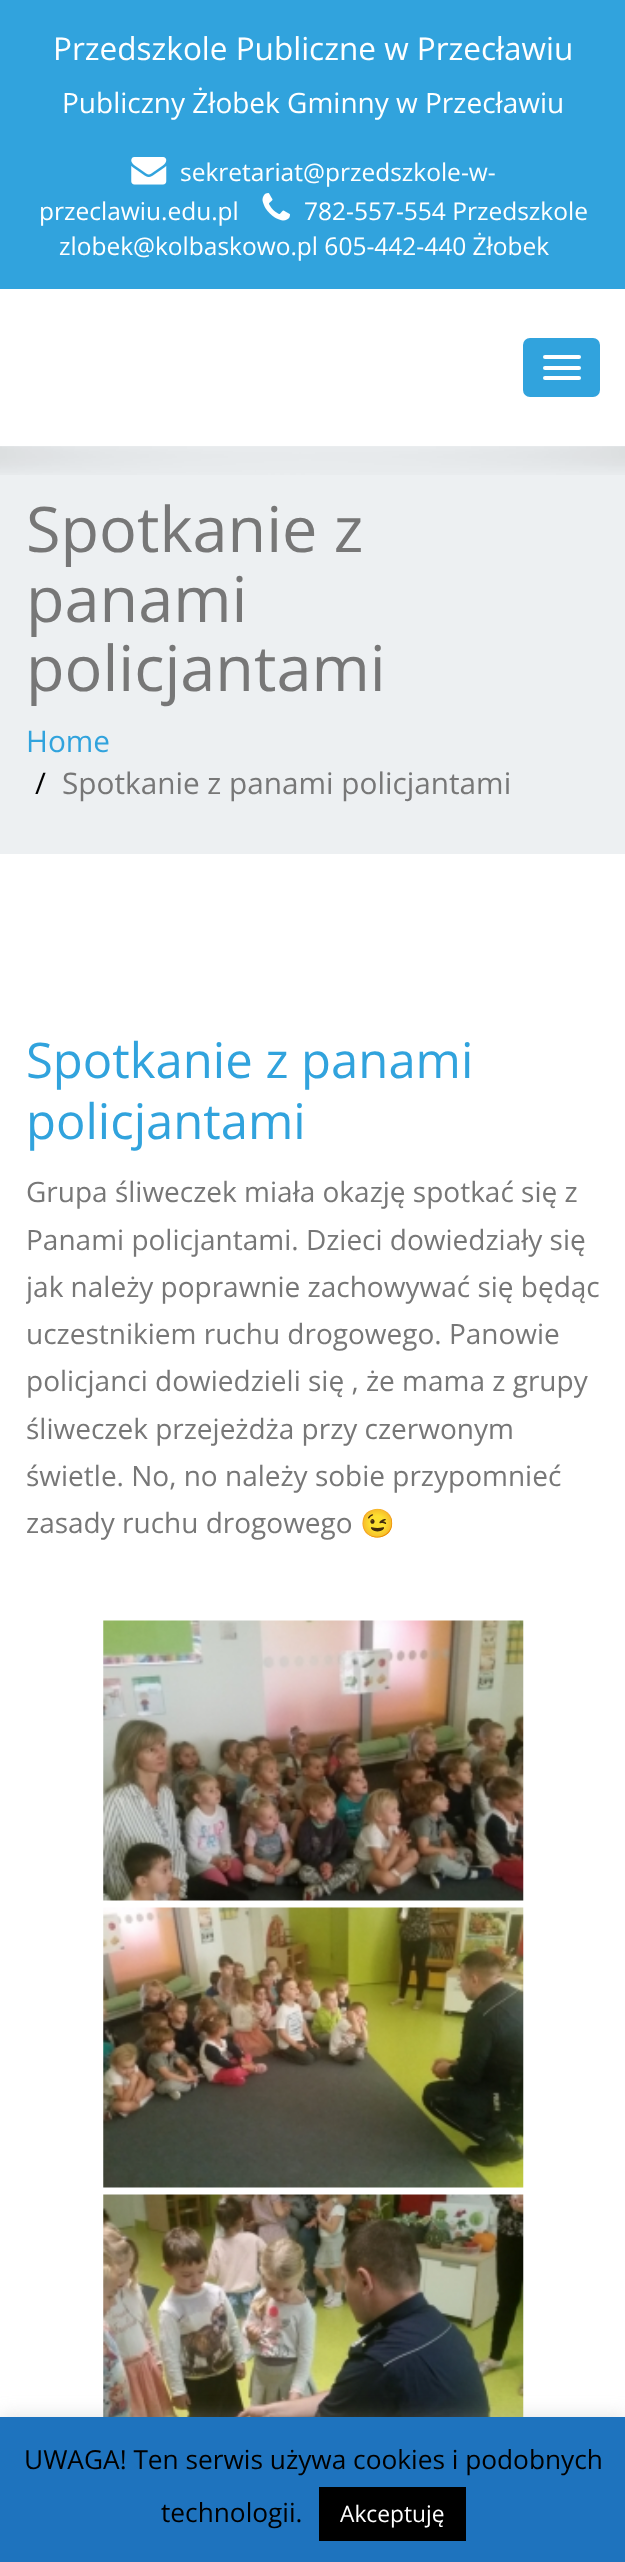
<!DOCTYPE html>
<meta charset="utf-8">
<style>body { margin: 0 } canvas { display: block }</style>
<canvas id="canvas" width="625" height="2562"></canvas>
<script type="module">
  const canvas = document.getElementById("canvas");
  const ctx = canvas.getContext("2d");
  ctx.miterLimit = 4;
  ctx.fontKerning = "normal";
  async function loadImage(src) {
    const img = new Image();
    img.src = src;
    await img.decode();
    return img;
  }

  ctx.fillStyle = "#ffffff";
  ctx.fillRect(0, 0, 625, 2562);
  ctx.fillStyle = "#31a3dd";
  ctx.fillRect(0, 0, 625, 289);
  ctx.font = "31.5px Open Sans";
  ctx.fillStyle = "#ffffff";
  ctx.fillText("Przedszkole Publiczne w Przecławiu", 53, 60);
  ctx.font = "28px Open Sans";
  ctx.fillText("Publiczny Żłobek Gminny w Przecławiu", 62, 113);
  ctx.drawImage(await loadImage("img1.png"), 131, 157, 36, 28);
  ctx.font = "24.5px Open Sans";
  ctx.fillText("sekretariat@przedszkole-w-", 180, 181);
  ctx.fillText("przeclawiu.edu.pl", 39, 220);
  ctx.drawImage(await loadImage("img2.png"), 262, 193, 28, 28);
  ctx.fillText("782-557-554 Przedszkole", 304, 220);
  ctx.fillText("zlobek@kolbaskowo.pl 605-442-440 Żłobek", 59, 255);
  ctx.fillStyle = "#31a3dd";
  ctx.beginPath();
  ctx.roundRect(524, 339, 75, 57, 6);
  ctx.fill();
  ctx.strokeStyle = "#31a3dd";
  ctx.lineWidth = 2;
  ctx.stroke();
  ctx.fillStyle = "#ffffff";
  ctx.beginPath();
  ctx.roundRect(543, 355, 38, 4, 2);
  ctx.fill();
  ctx.beginPath();
  ctx.roundRect(543, 366, 38, 4, 2);
  ctx.fill();
  ctx.beginPath();
  ctx.roundRect(543, 376, 38, 4, 2);
  ctx.fill();
  ctx.fillStyle = "#edf0f2";
  ctx.fillRect(0, 446, 625, 408);
  ctx.drawImage(await loadImage("img3.png"), 0, 446, 625, 29);
  ctx.font = "63px Open Sans";
  ctx.fillStyle = "#777777";
  ctx.fillText("Spotkanie z", 26, 552);
  ctx.fillText("panami", 26, 622);
  ctx.fillText("policjantami", 26, 691);
  ctx.font = "29.75px Open Sans";
  ctx.fillStyle = "#31a3dd";
  ctx.fillText("Home", 26, 752);
  ctx.fillStyle = "#000000";
  ctx.fillText("/", 35, 794);
  ctx.fillStyle = "#777777";
  ctx.fillText("Spotkanie z panami policjantami", 62, 794);
  ctx.font = "49px Open Sans";
  ctx.fillStyle = "#31a3dd";
  ctx.fillText("Spotkanie z panami", 26, 1078);
  ctx.fillText("policjantami", 26, 1139);
  ctx.font = "28px Open Sans";
  ctx.fillStyle = "#777777";
  ctx.fillText("Grupa śliweczek miała okazję spotkać się z", 26, 1202);
  ctx.fillText("Panami policjantami. Dzieci dowiedziały się", 26, 1250);
  ctx.save();
  ctx.beginPath();
  ctx.rect(26, 994, 574, 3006);
  ctx.clip();
  ctx.fillText("jak należy poprawnie zachowywać się będąc", 26, 1297);
  ctx.restore();
  ctx.fillText("uczestnikiem ruchu drogowego. Panowie", 26, 1344);
  ctx.fillText("policjanci dowiedzieli się , że mama z grupy", 26, 1391);
  ctx.fillText("śliweczek przejeżdża przy czerwonym", 26, 1439);
  ctx.fillText("świetle. No, no należy sobie przypomnieć", 26, 1486);
  ctx.fillText("zasady ruchu drogowego", 26, 1533);
  ctx.font = "28px Noto Color Emoji";
  ctx.fillText("😉", 360, 1533);
  ctx.drawImage(await loadImage("img4.png"), 103, 1620, 421, 281);
  ctx.drawImage(await loadImage("img5.png"), 103, 1907, 421, 281);
  ctx.drawImage(await loadImage("img6.png"), 103, 2194, 421, 223);
  ctx.fillStyle = "rgba(172, 171, 171, 0.3)";
  ctx.filter = "blur(9px)";
  ctx.beginPath();
  ctx.rect(0, 2415, 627, 145);
  ctx.fill();
  ctx.filter = "none";
  ctx.fillStyle = "#1e73be";
  ctx.fillRect(0, 2417, 625, 145);
  ctx.font = "26.25px Open Sans";
  ctx.fillStyle = "#000000";
  ctx.fillText("UWAGA! Ten serwis używa cookies i podobnych", 24, 2469);
  ctx.fillText("technologii.", 161, 2522);
  ctx.fillRect(319, 2487, 147, 54);
  ctx.font = "22.75px Open Sans";
  ctx.fillStyle = "#ffffff";
  ctx.fillText("Akceptuję", 340, 2522);
</script>
